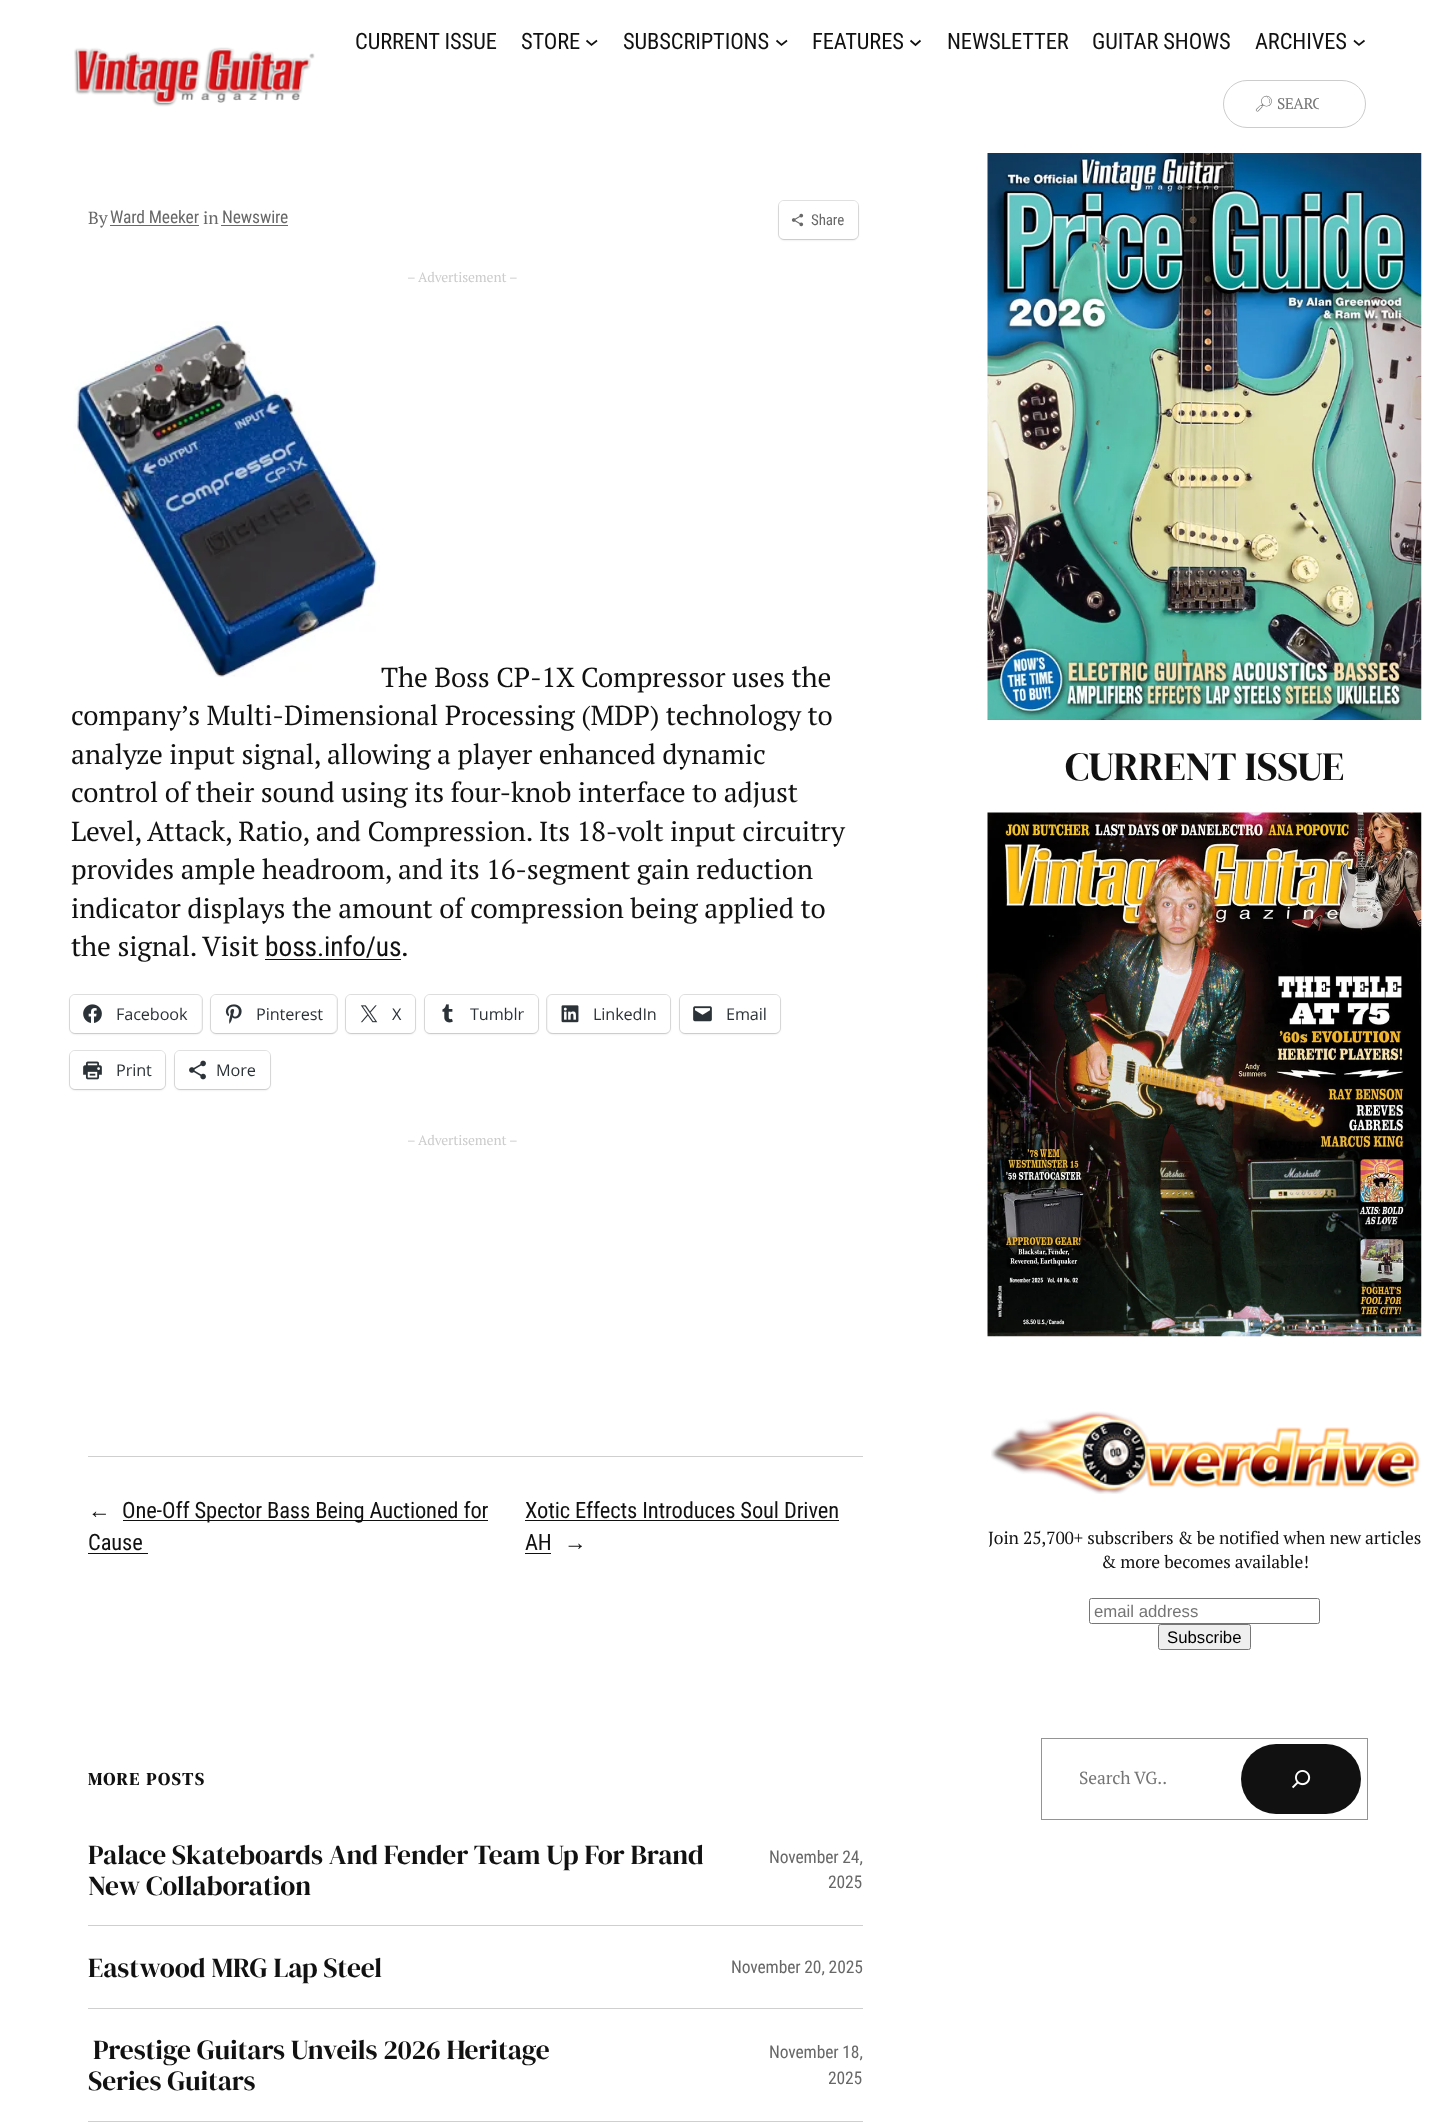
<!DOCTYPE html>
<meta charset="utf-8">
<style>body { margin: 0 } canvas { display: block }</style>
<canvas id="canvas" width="1437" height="2124"></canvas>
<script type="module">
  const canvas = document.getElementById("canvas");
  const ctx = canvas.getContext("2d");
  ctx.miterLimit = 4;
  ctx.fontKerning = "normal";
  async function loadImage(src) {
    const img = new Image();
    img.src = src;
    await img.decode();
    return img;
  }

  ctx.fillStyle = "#ffffff";
  ctx.fillRect(0, 0, 1437, 2124);
  ctx.drawImage(await loadImage("img1.png"), 74, 47, 241, 60);
  ctx.letterSpacing = "-0.12px";
  ctx.font = "22.5px Roboto Condensed";
  ctx.fillStyle = "#111111";
  ctx.fillText("CURRENT ISSUE", 355, 49);
  ctx.fillText("STORE", 521, 49);
  ctx.beginPath();
  ctx.moveTo(586.5, 40.5);
  ctx.lineTo(591.5, 45);
  ctx.lineTo(597, 40.5);
  ctx.strokeStyle = "#111111";
  ctx.lineWidth = 1.7;
  ctx.stroke();
  ctx.fillText("SUBSCRIPTIONS", 623, 49);
  ctx.beginPath();
  ctx.moveTo(776.5, 40.5);
  ctx.lineTo(781.5, 45);
  ctx.lineTo(787, 40.5);
  ctx.stroke();
  ctx.fillText("FEATURES", 812, 49);
  ctx.beginPath();
  ctx.moveTo(910.5, 40.5);
  ctx.lineTo(915.5, 45);
  ctx.lineTo(920.5, 40.5);
  ctx.stroke();
  ctx.fillText("NEWSLETTER", 947, 49);
  ctx.fillText("GUITAR SHOWS", 1092, 49);
  ctx.fillText("ARCHIVES", 1255, 49);
  ctx.beginPath();
  ctx.moveTo(1354, 40.5);
  ctx.lineTo(1359, 45);
  ctx.lineTo(1364.5, 40.5);
  ctx.stroke();
  ctx.beginPath();
  ctx.roundRect(1223.5, 80.5, 142, 47, 23.5);
  ctx.strokeStyle = "#cccccc";
  ctx.lineWidth = 1;
  ctx.stroke();
  ctx.letterSpacing = "-0.5px";
  ctx.font = "15.5px Noto Emoji";
  ctx.fillStyle = "#757575";
  ctx.fillText("🔎︎", 1254, 109);
  ctx.save();
  ctx.beginPath();
  ctx.rect(1255, 93, 64, 21);
  ctx.clip();
  ctx.font = "15.5px PT Serif";
  ctx.fillText("SEARC", 1277, 109);
  ctx.restore();
  ctx.letterSpacing = "-0.12px";
  ctx.font = "17.5px PT Serif";
  ctx.fillStyle = "#686868";
  ctx.fillText("By", 88, 224);
  ctx.font = "17.5px Roboto Condensed";
  ctx.fillText("Ward Meeker", 110, 223);
  ctx.fillRect(110, 225, 89, 1);
  ctx.font = "17.5px PT Serif";
  ctx.fillText("in", 203, 224);
  ctx.font = "17.5px Roboto Condensed";
  ctx.fillText("Newswire", 222, 223);
  ctx.fillRect(221, 225, 67, 1);
  ctx.beginPath();
  ctx.roundRect(778.5, 200.5, 80, 39, 5.5);
  ctx.strokeStyle = "#e0e0e0";
  ctx.stroke();
  ctx.fillStyle = "rgba(0, 0, 0, 0.12)";
  ctx.filter = "blur(1px)";
  ctx.beginPath();
  ctx.roundRect(779, 203, 79, 37, 5);
  ctx.fill();
  ctx.filter = "none";
  ctx.fillStyle = "#ffffff";
  ctx.beginPath();
  ctx.roundRect(779, 201, 79, 38, 5);
  ctx.fill();
  ctx.drawImage(await loadImage("img2.png"), 791, 213, 13, 14);
  ctx.font = "15px Roboto Condensed";
  ctx.fillStyle = "#686868";
  ctx.fillText("Share", 811, 225);
  ctx.font = "13.75px PT Serif";
  ctx.fillStyle = "#cccccc";
  ctx.fillText("– Advertisement –", 407, 282);
  ctx.drawImage(await loadImage("img3.png"), 73, 321, 307, 356);
  ctx.font = "27.5px PT Serif";
  ctx.fillStyle = "#111111";
  ctx.fillText("The Boss CP-1X Compressor uses the", 381, 687);
  ctx.fillText("company’s Multi-Dimensional Processing (MDP) technology to", 71, 725);
  ctx.fillText("analyze input signal, allowing a player enhanced dynamic", 71, 764);
  ctx.fillText("control of their sound using its four-knob interface to adjust", 71, 802);
  ctx.fillText("Level, Attack, Ratio, and Compression. Its 18-volt input circuitry", 71, 841);
  ctx.fillText("provides ample headroom, and its 16-segment gain reduction", 71, 879);
  ctx.fillText("indicator displays the amount of compression being applied to", 71, 918);
  ctx.fillText("the signal. Visit", 71, 956);
  ctx.font = "27.5px Roboto Condensed";
  ctx.fillText("boss.info/us", 265, 956);
  ctx.fillRect(265, 959, 136, 1);
  ctx.font = "27.5px PT Serif";
  ctx.fillText(".", 401, 956);
  ctx.beginPath();
  ctx.roundRect(69.5, 994.5, 133, 39, 5.5);
  ctx.stroke();
  ctx.fillStyle = "rgba(0, 0, 0, 0.12)";
  ctx.filter = "blur(1px)";
  ctx.beginPath();
  ctx.roundRect(70, 996, 131, 38, 5);
  ctx.fill();
  ctx.filter = "none";
  ctx.fillStyle = "#ffffff";
  ctx.beginPath();
  ctx.roundRect(70, 995, 131, 38, 5);
  ctx.fill();
  ctx.drawImage(await loadImage("img4.png"), 83, 1004, 19, 19);
  ctx.font = "16.25px Open Sans";
  ctx.fillStyle = "#2c3338";
  ctx.fillText("Facebook", 116, 1020);
  ctx.beginPath();
  ctx.roundRect(210.5, 994.5, 127, 39, 5.5);
  ctx.stroke();
  ctx.fillStyle = "rgba(0, 0, 0, 0.12)";
  ctx.filter = "blur(1px)";
  ctx.beginPath();
  ctx.roundRect(211, 996, 125, 38, 5);
  ctx.fill();
  ctx.filter = "none";
  ctx.fillStyle = "#ffffff";
  ctx.beginPath();
  ctx.roundRect(211, 995, 125, 38, 5);
  ctx.fill();
  ctx.drawImage(await loadImage("img5.png"), 225, 1004, 17, 20);
  ctx.fillStyle = "#2c3338";
  ctx.fillText("Pinterest", 256, 1020);
  ctx.beginPath();
  ctx.roundRect(345.5, 994.5, 70, 39, 5.5);
  ctx.stroke();
  ctx.fillStyle = "rgba(0, 0, 0, 0.12)";
  ctx.filter = "blur(1px)";
  ctx.beginPath();
  ctx.roundRect(346, 996, 69, 38, 5);
  ctx.fill();
  ctx.filter = "none";
  ctx.fillStyle = "#ffffff";
  ctx.beginPath();
  ctx.roundRect(346, 995, 69, 38, 5);
  ctx.fill();
  ctx.drawImage(await loadImage("img6.png"), 360, 1005, 18, 18);
  ctx.fillStyle = "#2c3338";
  ctx.fillText("X", 392, 1020);
  ctx.beginPath();
  ctx.roundRect(424.5, 994.5, 114, 39, 5.5);
  ctx.stroke();
  ctx.fillStyle = "rgba(0, 0, 0, 0.12)";
  ctx.filter = "blur(1px)";
  ctx.beginPath();
  ctx.roundRect(425, 996, 113, 38, 5);
  ctx.fill();
  ctx.filter = "none";
  ctx.fillStyle = "#ffffff";
  ctx.beginPath();
  ctx.roundRect(425, 995, 113, 38, 5);
  ctx.fill();
  ctx.drawImage(await loadImage("img7.png"), 442, 1004, 11, 19);
  ctx.fillStyle = "#2c3338";
  ctx.fillText("Tumblr", 470, 1020);
  ctx.beginPath();
  ctx.roundRect(546.5, 994.5, 124, 39, 5.5);
  ctx.stroke();
  ctx.fillStyle = "rgba(0, 0, 0, 0.12)";
  ctx.filter = "blur(1px)";
  ctx.beginPath();
  ctx.roundRect(548, 996, 122, 38, 5);
  ctx.fill();
  ctx.filter = "none";
  ctx.fillStyle = "#ffffff";
  ctx.beginPath();
  ctx.roundRect(548, 995, 122, 38, 5);
  ctx.fill();
  ctx.drawImage(await loadImage("img8.png"), 561, 1005, 18, 18);
  ctx.fillStyle = "#2c3338";
  ctx.fillText("LinkedIn", 593, 1020);
  ctx.beginPath();
  ctx.roundRect(679.5, 994.5, 101, 39, 5.5);
  ctx.stroke();
  ctx.fillStyle = "rgba(0, 0, 0, 0.12)";
  ctx.filter = "blur(1px)";
  ctx.beginPath();
  ctx.roundRect(680, 996, 100, 38, 5);
  ctx.fill();
  ctx.filter = "none";
  ctx.fillStyle = "#ffffff";
  ctx.beginPath();
  ctx.roundRect(680, 995, 100, 38, 5);
  ctx.fill();
  ctx.drawImage(await loadImage("img9.png"), 693, 1006, 19, 16);
  ctx.fillStyle = "#2c3338";
  ctx.fillText("Email", 726, 1020);
  ctx.beginPath();
  ctx.roundRect(69.5, 1050.5, 96, 39, 5.5);
  ctx.stroke();
  ctx.fillStyle = "rgba(0, 0, 0, 0.12)";
  ctx.filter = "blur(1px)";
  ctx.beginPath();
  ctx.roundRect(70, 1053, 95, 37, 5);
  ctx.fill();
  ctx.filter = "none";
  ctx.fillStyle = "#ffffff";
  ctx.beginPath();
  ctx.roundRect(70, 1051, 95, 38, 5);
  ctx.fill();
  ctx.drawImage(await loadImage("img10.png"), 83, 1061, 19, 19);
  ctx.fillStyle = "#2c3338";
  ctx.fillText("Print", 116, 1076);
  ctx.beginPath();
  ctx.roundRect(174.5, 1050.5, 96, 39, 5.5);
  ctx.stroke();
  ctx.fillStyle = "rgba(0, 0, 0, 0.12)";
  ctx.filter = "blur(1px)";
  ctx.beginPath();
  ctx.roundRect(175, 1053, 95, 37, 5);
  ctx.fill();
  ctx.filter = "none";
  ctx.fillStyle = "#ffffff";
  ctx.beginPath();
  ctx.roundRect(175, 1051, 95, 38, 5);
  ctx.fill();
  ctx.drawImage(await loadImage("img11.png"), 189, 1060, 17, 20);
  ctx.fillStyle = "#2c3338";
  ctx.fillText("More", 216, 1076);
  ctx.font = "13.75px PT Serif";
  ctx.fillStyle = "#cccccc";
  ctx.fillText("– Advertisement –", 407, 1145);
  ctx.fillStyle = "#cfcfcf";
  ctx.fillRect(88, 1456, 775, 1);
  ctx.font = "22.5px Liberation Serif";
  ctx.fillStyle = "#111111";
  ctx.fillText("←", 88, 1518);
  ctx.fillRect(123, 1520, 365, 1);
  ctx.font = "22.5px Roboto Condensed";
  ctx.fillText("One-Off Spector Bass Being Auctioned for", 122, 1518);
  ctx.fillText("Cause", 88, 1550);
  ctx.fillRect(88, 1553, 60, 1);
  ctx.fillText("Xotic Effects Introduces Soul Driven", 525, 1518);
  ctx.fillRect(525, 1520, 314, 1);
  ctx.fillText("AH", 525, 1550);
  ctx.fillRect(525, 1553, 26, 1);
  ctx.font = "22.5px Liberation Serif";
  ctx.fillText("→", 564, 1550);
  ctx.letterSpacing = "1.75px";
  ctx.font = "bold 17.5px DM Serif Display";
  ctx.fillText("MORE POSTS", 88, 1785);
  ctx.fillStyle = "#cfcfcf";
  ctx.fillRect(88, 1925, 775, 1);
  ctx.letterSpacing = "-0.12px";
  ctx.font = "27.5px DM Serif Display";
  ctx.fillStyle = "#111111";
  ctx.fillText("Palace Skateboards And Fender Team Up For Brand", 88, 1864);
  ctx.fillText("New Collaboration", 88, 1895);
  ctx.font = "17.5px Roboto Condensed";
  ctx.fillStyle = "#686868";
  ctx.fillText("November 24,", 769, 1863);
  ctx.fillText("2025", 828, 1888);
  ctx.fillStyle = "#cfcfcf";
  ctx.fillRect(88, 2008, 775, 1);
  ctx.font = "27.5px DM Serif Display";
  ctx.fillStyle = "#111111";
  ctx.fillText("Eastwood MRG Lap Steel", 88, 1977);
  ctx.font = "17.5px Roboto Condensed";
  ctx.fillStyle = "#686868";
  ctx.fillText("November 20, 2025", 731, 1973);
  ctx.fillStyle = "#cfcfcf";
  ctx.fillRect(88, 2121, 775, 1);
  ctx.font = "27.5px DM Serif Display";
  ctx.fillStyle = "#111111";
  ctx.fillText("Prestige Guitars Unveils 2026 Heritage", 93, 2059);
  ctx.fillText("Series Guitars", 88, 2090);
  ctx.font = "17.5px Roboto Condensed";
  ctx.fillStyle = "#686868";
  ctx.fillText("November 18,", 769, 2058);
  ctx.fillText("2025", 828, 2084);
  ctx.drawImage(await loadImage("img12.png"), 987, 153, 435, 567);
  ctx.font = "40px DM Serif Display";
  ctx.fillStyle = "#111111";
  ctx.fillText("CURRENT ISSUE", 1065, 780);
  ctx.drawImage(await loadImage("img13.png"), 987, 812, 435, 525);
  ctx.drawImage(await loadImage("img14.png"), 991, 1411, 430, 83);
  ctx.font = "17.5px PT Serif";
  ctx.fillText("Join 25,700+ subscribers & be notified when new articles", 988, 1544);
  ctx.fillText("& more becomes available!", 1101, 1568);
  ctx.beginPath();
  ctx.roundRect(1089.5, 1598.5, 230, 25, 2);
  ctx.strokeStyle = "#767676";
  ctx.stroke();
  ctx.letterSpacing = "0px";
  ctx.font = "16.75px Liberation Sans";
  ctx.fillStyle = "#757575";
  ctx.fillText("email address", 1094, 1617);
  ctx.fillStyle = "#efefef";
  ctx.beginPath();
  ctx.roundRect(1158.5, 1624.5, 92, 25, 2);
  ctx.fill();
  ctx.stroke();
  ctx.fillStyle = "#000000";
  ctx.fillText("Subscribe", 1167, 1643);
  ctx.strokeStyle = "#949494";
  ctx.strokeRect(1041.5, 1738.5, 326, 81);
  ctx.letterSpacing = "-0.12px";
  ctx.font = "17.5px PT Serif";
  ctx.fillStyle = "#757575";
  ctx.fillText("Search VG..", 1079, 1784);
  ctx.fillStyle = "#111111";
  ctx.beginPath();
  ctx.roundRect(1241, 1744, 120, 70, 35);
  ctx.fill();
  ctx.drawImage(await loadImage("img15.png"), 1292, 1770, 19, 19);
</script>
